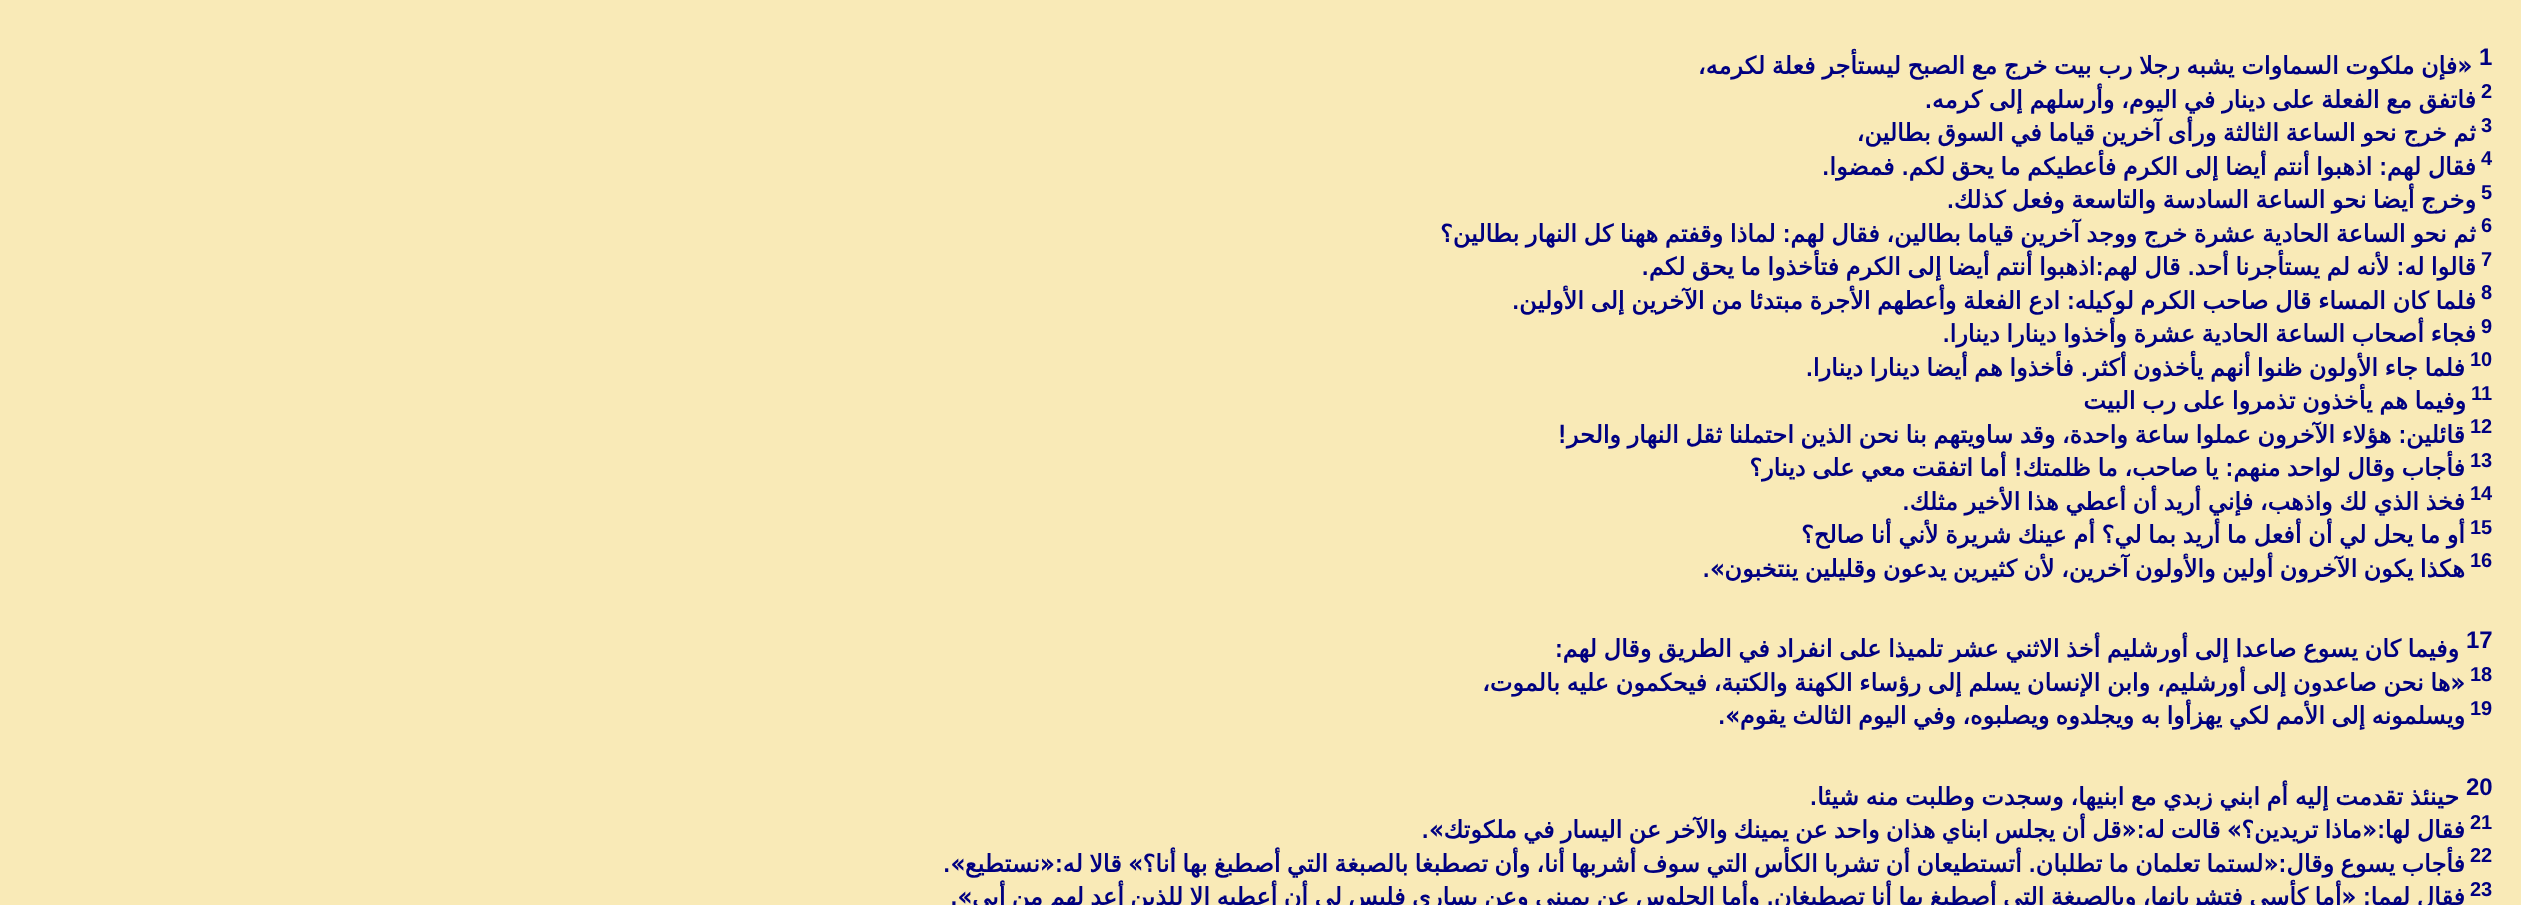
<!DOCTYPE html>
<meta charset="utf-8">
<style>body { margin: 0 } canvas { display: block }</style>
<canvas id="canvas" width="2521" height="905"></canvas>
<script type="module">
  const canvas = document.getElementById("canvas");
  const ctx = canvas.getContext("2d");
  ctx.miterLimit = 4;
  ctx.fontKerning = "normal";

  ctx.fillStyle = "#f9eab7";
  ctx.fillRect(0, 0, 2521, 905);
  ctx.font = "bold 24px Liberation Sans";
  ctx.fillStyle = "#000080";
  ctx.fillText("1", 2479, 65);
  ctx.wordSpacing = "-1px";
  ctx.direction = "rtl";
  ctx.font = "bold 24px DejaVu Sans";
  ctx.fillText("«فإن ملكوت السماوات يشبه رجلا رب بيت خرج مع الصبح ليستأجر فعلة لكرمه،", 2472, 74);
  ctx.wordSpacing = "0px";
  ctx.direction = "ltr";
  ctx.font = "bold 20px Liberation Sans";
  ctx.fillText("2", 2481, 98);
  ctx.wordSpacing = "-1px";
  ctx.direction = "rtl";
  ctx.font = "bold 24px DejaVu Sans";
  ctx.fillText("فاتفق مع الفعلة على دينار في اليوم، وأرسلهم إلى كرمه.", 2476, 108);
  ctx.wordSpacing = "0px";
  ctx.direction = "ltr";
  ctx.font = "bold 20px Liberation Sans";
  ctx.fillText("3", 2481, 132);
  ctx.wordSpacing = "-1px";
  ctx.direction = "rtl";
  ctx.font = "bold 24px DejaVu Sans";
  ctx.fillText("ثم خرج نحو الساعة الثالثة ورأى آخرين قياما في السوق بطالين،", 2476, 141);
  ctx.wordSpacing = "0px";
  ctx.direction = "ltr";
  ctx.font = "bold 20px Liberation Sans";
  ctx.fillText("4", 2481, 165);
  ctx.wordSpacing = "-1.15px";
  ctx.direction = "rtl";
  ctx.font = "bold 24px DejaVu Sans";
  ctx.fillText("فقال لهم: اذهبوا أنتم أيضا إلى الكرم فأعطيكم ما يحق لكم. فمضوا.", 2476, 175);
  ctx.wordSpacing = "0px";
  ctx.direction = "ltr";
  ctx.font = "bold 20px Liberation Sans";
  ctx.fillText("5", 2481, 199);
  ctx.wordSpacing = "-1.1px";
  ctx.direction = "rtl";
  ctx.font = "bold 24px DejaVu Sans";
  ctx.fillText("وخرج أيضا نحو الساعة السادسة والتاسعة وفعل كذلك.", 2476, 208);
  ctx.wordSpacing = "0px";
  ctx.direction = "ltr";
  ctx.font = "bold 20px Liberation Sans";
  ctx.fillText("6", 2481, 232);
  ctx.wordSpacing = "-1px";
  ctx.direction = "rtl";
  ctx.font = "bold 24px DejaVu Sans";
  ctx.fillText("ثم نحو الساعة الحادية عشرة خرج ووجد آخرين قياما بطالين، فقال لهم: لماذا وقفتم ههنا كل النهار بطالين؟", 2476, 242);
  ctx.wordSpacing = "0px";
  ctx.direction = "ltr";
  ctx.font = "bold 20px Liberation Sans";
  ctx.fillText("7", 2481, 266);
  ctx.wordSpacing = "-1.1px";
  ctx.direction = "rtl";
  ctx.font = "bold 24px DejaVu Sans";
  ctx.fillText("قالوا له: لأنه لم يستأجرنا أحد. قال لهم:اذهبوا أنتم أيضا إلى الكرم فتأخذوا ما يحق لكم.", 2476, 275);
  ctx.wordSpacing = "0px";
  ctx.direction = "ltr";
  ctx.font = "bold 20px Liberation Sans";
  ctx.fillText("8", 2481, 299);
  ctx.wordSpacing = "-1px";
  ctx.direction = "rtl";
  ctx.font = "bold 24px DejaVu Sans";
  ctx.fillText("فلما كان المساء قال صاحب الكرم لوكيله: ادع الفعلة وأعطهم الأجرة مبتدئا من الآخرين إلى الأولين.", 2476, 309);
  ctx.wordSpacing = "0px";
  ctx.direction = "ltr";
  ctx.font = "bold 20px Liberation Sans";
  ctx.fillText("9", 2481, 333);
  ctx.wordSpacing = "-1.1px";
  ctx.direction = "rtl";
  ctx.font = "bold 24px DejaVu Sans";
  ctx.fillText("فجاء أصحاب الساعة الحادية عشرة وأخذوا دينارا دينارا.", 2476, 342);
  ctx.wordSpacing = "0px";
  ctx.direction = "ltr";
  ctx.font = "bold 20px Liberation Sans";
  ctx.fillText("10", 2470, 366);
  ctx.wordSpacing = "-1.15px";
  ctx.direction = "rtl";
  ctx.font = "bold 24px DejaVu Sans";
  ctx.fillText("فلما جاء الأولون ظنوا أنهم يأخذون أكثر. فأخذوا هم أيضا دينارا دينارا.", 2465, 376);
  ctx.wordSpacing = "0px";
  ctx.direction = "ltr";
  ctx.font = "bold 20px Liberation Sans";
  ctx.fillText("11", 2471, 400);
  ctx.wordSpacing = "-1px";
  ctx.direction = "rtl";
  ctx.font = "bold 24px DejaVu Sans";
  ctx.fillText("وفيما هم يأخذون تذمروا على رب البيت", 2466, 409);
  ctx.wordSpacing = "0px";
  ctx.direction = "ltr";
  ctx.font = "bold 20px Liberation Sans";
  ctx.fillText("12", 2470, 433);
  ctx.wordSpacing = "-1.1px";
  ctx.direction = "rtl";
  ctx.font = "bold 24px DejaVu Sans";
  ctx.fillText("قائلين: هؤلاء الآخرون عملوا ساعة واحدة، وقد ساويتهم بنا نحن الذين احتملنا ثقل النهار والحر!", 2465, 443);
  ctx.wordSpacing = "0px";
  ctx.direction = "ltr";
  ctx.font = "bold 20px Liberation Sans";
  ctx.fillText("13", 2470, 467);
  ctx.wordSpacing = "-1.1px";
  ctx.direction = "rtl";
  ctx.font = "bold 24px DejaVu Sans";
  ctx.fillText("فأجاب وقال لواحد منهم: يا صاحب، ما ظلمتك! أما اتفقت معي على دينار؟", 2465, 476);
  ctx.wordSpacing = "0px";
  ctx.direction = "ltr";
  ctx.font = "bold 20px Liberation Sans";
  ctx.fillText("14", 2470, 500);
  ctx.wordSpacing = "-1px";
  ctx.direction = "rtl";
  ctx.font = "bold 24px DejaVu Sans";
  ctx.fillText("فخذ الذي لك واذهب، فإني أريد أن أعطي هذا الأخير مثلك.", 2465, 510);
  ctx.wordSpacing = "0px";
  ctx.direction = "ltr";
  ctx.font = "bold 20px Liberation Sans";
  ctx.fillText("15", 2470, 534);
  ctx.wordSpacing = "-1px";
  ctx.direction = "rtl";
  ctx.font = "bold 24px DejaVu Sans";
  ctx.fillText("أو ما يحل لي أن أفعل ما أريد بما لي؟ أم عينك شريرة لأني أنا صالح؟", 2465, 543);
  ctx.wordSpacing = "0px";
  ctx.direction = "ltr";
  ctx.font = "bold 20px Liberation Sans";
  ctx.fillText("16", 2470, 567);
  ctx.wordSpacing = "-1.25px";
  ctx.direction = "rtl";
  ctx.font = "bold 24px DejaVu Sans";
  ctx.fillText("هكذا يكون الآخرون أولين والأولون آخرين، لأن كثيرين يدعون وقليلين ينتخبون».", 2465, 577);
  ctx.wordSpacing = "0px";
  ctx.direction = "ltr";
  ctx.font = "bold 24px Liberation Sans";
  ctx.fillText("17", 2466, 648);
  ctx.wordSpacing = "-1px";
  ctx.direction = "rtl";
  ctx.font = "bold 24px DejaVu Sans";
  ctx.fillText("وفيما كان يسوع صاعدا إلى أورشليم أخذ الاثني عشر تلميذا على انفراد في الطريق وقال لهم:", 2459, 657);
  ctx.wordSpacing = "0px";
  ctx.direction = "ltr";
  ctx.font = "bold 20px Liberation Sans";
  ctx.fillText("18", 2470, 681);
  ctx.wordSpacing = "-1px";
  ctx.direction = "rtl";
  ctx.font = "bold 24px DejaVu Sans";
  ctx.fillText("«ها نحن صاعدون إلى أورشليم، وابن الإنسان يسلم إلى رؤساء الكهنة والكتبة، فيحكمون عليه بالموت،", 2465, 691);
  ctx.wordSpacing = "0px";
  ctx.direction = "ltr";
  ctx.font = "bold 20px Liberation Sans";
  ctx.fillText("19", 2470, 715);
  ctx.wordSpacing = "-1.25px";
  ctx.direction = "rtl";
  ctx.font = "bold 24px DejaVu Sans";
  ctx.fillText("ويسلمونه إلى الأمم لكي يهزأوا به ويجلدوه ويصلبوه، وفي اليوم الثالث يقوم».", 2465, 724);
  ctx.wordSpacing = "0px";
  ctx.direction = "ltr";
  ctx.font = "bold 24px Liberation Sans";
  ctx.fillText("20", 2466, 795);
  ctx.wordSpacing = "-1px";
  ctx.direction = "rtl";
  ctx.font = "bold 24px DejaVu Sans";
  ctx.fillText("حينئذ تقدمت إليه أم ابني زبدي مع ابنيها، وسجدت وطلبت منه شيئا.", 2459, 805);
  ctx.wordSpacing = "0px";
  ctx.direction = "ltr";
  ctx.font = "bold 20px Liberation Sans";
  ctx.fillText("21", 2470, 829);
  ctx.wordSpacing = "-1.4px";
  ctx.direction = "rtl";
  ctx.font = "bold 24px DejaVu Sans";
  ctx.fillText("فقال لها:«ماذا تريدين؟» قالت له:«قل أن يجلس ابناي هذان واحد عن يمينك والآخر عن اليسار في ملكوتك».", 2465, 838);
  ctx.wordSpacing = "0px";
  ctx.direction = "ltr";
  ctx.font = "bold 20px Liberation Sans";
  ctx.fillText("22", 2470, 862);
  ctx.wordSpacing = "-1.3px";
  ctx.direction = "rtl";
  ctx.font = "bold 24px DejaVu Sans";
  ctx.fillText("فأجاب يسوع وقال:«لستما تعلمان ما تطلبان. أتستطيعان أن تشربا الكأس التي سوف أشربها أنا، وأن تصطبغا بالصبغة التي أصطبغ بها أنا؟» قالا له:«نستطيع».", 2465, 872);
  ctx.wordSpacing = "0px";
  ctx.direction = "ltr";
  ctx.font = "bold 20px Liberation Sans";
  ctx.fillText("23", 2470, 896);
  ctx.wordSpacing = "-1.15px";
  ctx.direction = "rtl";
  ctx.font = "bold 24px DejaVu Sans";
  ctx.fillText("فقال لهما: «أما كأسي فتشربانها، وبالصبغة التي أصطبغ بها أنا تصطبغان. وأما الجلوس عن يميني وعن يساري فليس لي أن أعطيه إلا للذين أعد لهم من أبي».", 2465, 905);
</script>
